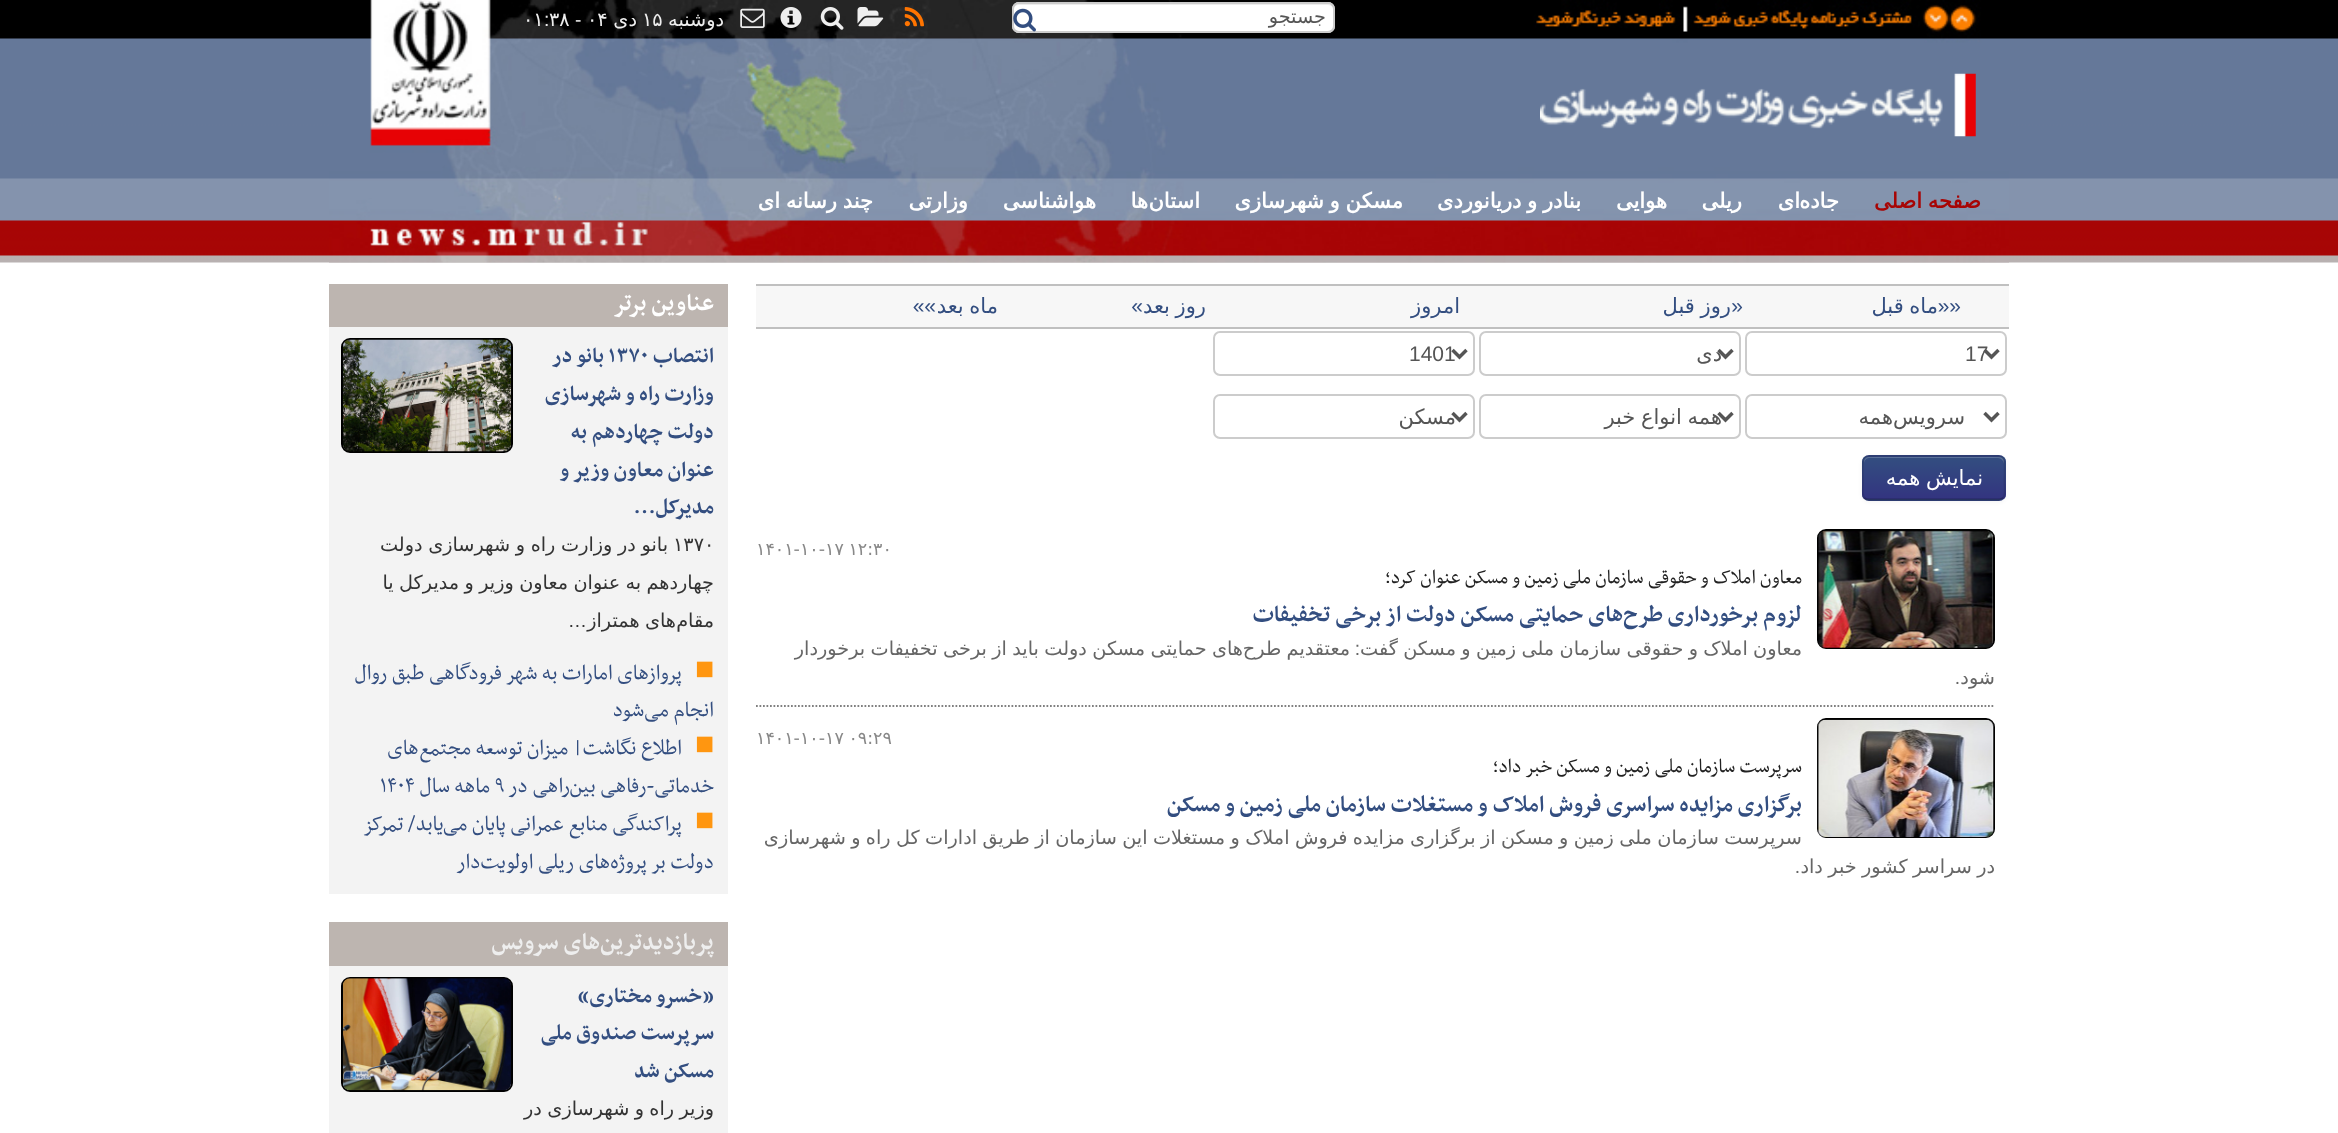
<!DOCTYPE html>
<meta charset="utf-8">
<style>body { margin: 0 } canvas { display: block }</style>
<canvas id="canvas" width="2338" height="1133"></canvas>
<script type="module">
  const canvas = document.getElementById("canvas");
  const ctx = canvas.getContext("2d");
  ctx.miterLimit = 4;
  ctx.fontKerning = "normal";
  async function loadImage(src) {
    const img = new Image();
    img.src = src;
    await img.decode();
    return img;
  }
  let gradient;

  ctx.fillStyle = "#ffffff";
  ctx.fillRect(0, 0, 2338, 1133);
  ctx.drawImage(await loadImage("img1.png"), 0, 0, 2338, 263);
  ctx.drawImage(await loadImage("img2.png"), 329, 0, 1680, 263);
  ctx.beginPath();
  ctx.roundRect(1012, 2, 323, 31, 7);
  ctx.fill();
  ctx.fillStyle = "#ececec";
  ctx.beginPath();
  ctx.moveTo(1018, 5);
  ctx.lineTo(1328, 5);
  ctx.bezierCurveTo(1331, 5, 1334, 8, 1334, 10);
  ctx.bezierCurveTo(1334, 7, 1332, 4, 1329, 4);
  ctx.lineTo(1018, 4);
  ctx.bezierCurveTo(1015, 4, 1013, 7, 1013, 10);
  ctx.bezierCurveTo(1013, 8, 1016, 5, 1018, 5);
  ctx.closePath();
  ctx.fill();
  ctx.beginPath();
  ctx.roundRect(1013, 3, 321, 29, 6);
  ctx.strokeStyle = "#cccccc";
  ctx.lineWidth = 2;
  ctx.stroke();
  ctx.direction = "rtl";
  ctx.font = "19.25px DejaVu Sans";
  ctx.fillStyle = "#555555";
  ctx.fillText("جستجو", 1326, 23);
  ctx.drawImage(await loadImage("img3.png"), 1013, 8, 23, 24);
  ctx.drawImage(await loadImage("img4.png"), 904, 7, 20, 20);
  ctx.drawImage(await loadImage("img5.png"), 857, 7, 27, 20);
  ctx.drawImage(await loadImage("img6.png"), 820, 7, 24, 23);
  ctx.drawImage(await loadImage("img7.png"), 780, 7, 22, 21);
  ctx.drawImage(await loadImage("img8.png"), 740, 8, 25, 20);
  ctx.fillStyle = "#eeeeee";
  ctx.fillText("دوشنبه", 724, 26);
  ctx.direction = "ltr";
  ctx.fillText("۱۵", 642, 26);
  ctx.direction = "rtl";
  ctx.fillText("دی", 637, 26);
  ctx.direction = "ltr";
  ctx.fillText("۰۴", 587, 26);
  ctx.font = "19.25px Liberation Sans";
  ctx.fillText("-", 575, 26);
  ctx.font = "19.25px DejaVu Sans";
  ctx.fillText("۳۸", 549, 26);
  ctx.font = "19.25px Liberation Sans";
  ctx.fillText(":", 544, 26);
  ctx.font = "19.25px DejaVu Sans";
  ctx.fillText("۰۱", 523, 26);
  ctx.drawImage(await loadImage("img9.png"), 1540, 73, 436, 64);
  ctx.wordSpacing = "-1px";
  ctx.direction = "rtl";
  ctx.font = "bold 21px DejaVu Sans";
  ctx.fillStyle = "#a70505";
  ctx.fillText("صفحه اصلی", 1981, 208);
  ctx.wordSpacing = "0px";
  ctx.fillStyle = "#ffffff";
  ctx.fillText("جاده", 1839, 208);
  ctx.fillText("ای", 1800, 208);
  ctx.fillText("ریلی", 1742, 208);
  ctx.fillText("هوایی", 1667, 208);
  ctx.wordSpacing = "-1px";
  ctx.fillText("بنادر و دریانوردی", 1581, 208);
  ctx.fillText("مسکن و شهرسازی", 1403, 208);
  ctx.wordSpacing = "0px";
  ctx.fillText("استان", 1200, 208);
  ctx.fillText("ها", 1148, 208);
  ctx.fillText("هواشناسی", 1096, 208);
  ctx.fillText("وزارتی", 968, 208);
  ctx.wordSpacing = "-1px";
  ctx.fillText("چند رسانه ای", 873, 208);
  ctx.fillStyle = "#f7f7f7";
  ctx.fillRect(756, 286, 1253, 41);
  ctx.fillStyle = "#c0c0c0";
  ctx.fillRect(756, 284, 1253, 2);
  ctx.fillRect(756, 327, 1253, 2);
  ctx.wordSpacing = "0px";
  ctx.font = "21px Liberation Sans";
  ctx.fillStyle = "#334e80";
  ctx.fillText("««", 1961, 313);
  ctx.wordSpacing = "-1px";
  ctx.font = "21px DejaVu Sans";
  ctx.fillText("ماه قبل", 1938, 313);
  ctx.wordSpacing = "0px";
  ctx.font = "21px Liberation Sans";
  ctx.fillText("«", 1743, 313);
  ctx.wordSpacing = "-1px";
  ctx.font = "21px DejaVu Sans";
  ctx.fillText("روز قبل", 1731, 313);
  ctx.wordSpacing = "0px";
  ctx.fillText("امروز", 1460, 313);
  ctx.wordSpacing = "-1px";
  ctx.fillText("روز بعد", 1206, 313);
  ctx.wordSpacing = "0px";
  ctx.font = "21px Liberation Sans";
  ctx.fillText("»", 1143, 313);
  ctx.wordSpacing = "-1px";
  ctx.font = "21px DejaVu Sans";
  ctx.fillText("ماه بعد", 998, 313);
  ctx.wordSpacing = "0px";
  ctx.font = "21px Liberation Sans";
  ctx.fillText("»»", 936, 313);
  ctx.beginPath();
  ctx.roundRect(1746, 332, 260, 43, 6);
  ctx.stroke();
  ctx.beginPath();
  ctx.moveTo(1984.5, 350);
  ctx.lineTo(1991.5, 357);
  ctx.lineTo(1998.5, 350);
  ctx.strokeStyle = "#555555";
  ctx.lineWidth = 3.5;
  ctx.stroke();
  ctx.direction = "ltr";
  ctx.fillStyle = "#555555";
  ctx.fillText("17", 1965, 361);
  ctx.beginPath();
  ctx.roundRect(1480, 332, 260, 43, 6);
  ctx.strokeStyle = "#cccccc";
  ctx.lineWidth = 2;
  ctx.stroke();
  ctx.beginPath();
  ctx.moveTo(1718.5, 350);
  ctx.lineTo(1725.5, 357);
  ctx.lineTo(1732.5, 350);
  ctx.strokeStyle = "#555555";
  ctx.lineWidth = 3.5;
  ctx.stroke();
  ctx.direction = "rtl";
  ctx.font = "21px DejaVu Sans";
  ctx.fillText("دی", 1722, 361);
  ctx.beginPath();
  ctx.roundRect(1214, 332, 260, 43, 6);
  ctx.strokeStyle = "#cccccc";
  ctx.lineWidth = 2;
  ctx.stroke();
  ctx.beginPath();
  ctx.moveTo(1452.5, 350);
  ctx.lineTo(1459.5, 357);
  ctx.lineTo(1466.5, 350);
  ctx.strokeStyle = "#555555";
  ctx.lineWidth = 3.5;
  ctx.stroke();
  ctx.direction = "ltr";
  ctx.font = "21px Liberation Sans";
  ctx.fillText("1401", 1409, 361);
  ctx.beginPath();
  ctx.roundRect(1746, 395, 260, 43, 6);
  ctx.strokeStyle = "#cccccc";
  ctx.lineWidth = 2;
  ctx.stroke();
  ctx.beginPath();
  ctx.moveTo(1984.5, 413);
  ctx.lineTo(1991.5, 420);
  ctx.lineTo(1998.5, 413);
  ctx.strokeStyle = "#555555";
  ctx.lineWidth = 3.5;
  ctx.stroke();
  ctx.direction = "rtl";
  ctx.font = "21px DejaVu Sans";
  ctx.fillText("سرویس", 1965, 424);
  ctx.fillText("همه", 1893, 424);
  ctx.beginPath();
  ctx.roundRect(1480, 395, 260, 43, 6);
  ctx.strokeStyle = "#cccccc";
  ctx.lineWidth = 2;
  ctx.stroke();
  ctx.beginPath();
  ctx.moveTo(1718.5, 413);
  ctx.lineTo(1725.5, 420);
  ctx.lineTo(1732.5, 413);
  ctx.strokeStyle = "#555555";
  ctx.lineWidth = 3.5;
  ctx.stroke();
  ctx.save();
  ctx.beginPath();
  ctx.rect(1519, 403, 203, 28);
  ctx.clip();
  ctx.wordSpacing = "-1px";
  ctx.fillText("همه انواع خبر", 1722, 424);
  ctx.restore();
  ctx.beginPath();
  ctx.roundRect(1214, 395, 260, 43, 6);
  ctx.strokeStyle = "#cccccc";
  ctx.lineWidth = 2;
  ctx.stroke();
  ctx.beginPath();
  ctx.moveTo(1452.5, 413);
  ctx.lineTo(1459.5, 420);
  ctx.lineTo(1466.5, 413);
  ctx.strokeStyle = "#555555";
  ctx.lineWidth = 3.5;
  ctx.stroke();
  ctx.fillText("مسکن", 1456, 424);
  ctx.fillStyle = "rgba(0, 0, 0, 0.05)";
  ctx.filter = "blur(2px)";
  ctx.beginPath();
  ctx.roundRect(1862, 457, 144, 45, 7);
  ctx.fill();
  ctx.filter = "none";
  ctx.fillStyle = "#334480";
  ctx.beginPath();
  ctx.roundRect(1862, 455, 144, 46, 7);
  ctx.fill();
  ctx.save();
  ctx.beginPath();
  ctx.roundRect(1862, 455, 144, 46, 7);
  ctx.clip();
  gradient = ctx.createLinearGradient(1934, 457, 1934, 499);
  gradient.addColorStop(0, "#334e80");
  gradient.addColorStop(1, "#333480");
  ctx.fillStyle = gradient;
  ctx.fillRect(1862, 457, 144, 42);
  ctx.restore();
  ctx.fillStyle = "rgba(255, 255, 255, 0.2)";
  ctx.beginPath();
  ctx.moveTo(1869, 458);
  ctx.lineTo(1998, 458);
  ctx.bezierCurveTo(2001, 458, 2004, 461, 2004, 464);
  ctx.lineTo(2004, 462);
  ctx.bezierCurveTo(2004, 459, 2002, 457, 1999, 457);
  ctx.lineTo(1869, 457);
  ctx.bezierCurveTo(1866, 457, 1864, 459, 1864, 462);
  ctx.lineTo(1864, 464);
  ctx.bezierCurveTo(1864, 461, 1866, 458, 1869, 458);
  ctx.closePath();
  ctx.fill();
  ctx.beginPath();
  ctx.moveTo(2003, 498);
  ctx.lineTo(1999, 499.5);
  ctx.lineTo(1868.5, 499.5);
  ctx.bezierCurveTo(1867, 499.5, 1865.5, 499, 1864.5, 498);
  ctx.strokeStyle = "rgba(0, 0, 0, 0.25)";
  ctx.lineWidth = 1.8;
  ctx.stroke();
  ctx.beginPath();
  ctx.moveTo(1864.5, 498);
  ctx.bezierCurveTo(1861.5, 494.5, 1863, 487, 1863, 483);
  ctx.bezierCurveTo(1863, 452, 1858, 456, 1890.5, 456);
  ctx.lineTo(1977, 456);
  ctx.bezierCurveTo(2009.5, 456, 2004.5, 452, 2004.5, 483);
  ctx.bezierCurveTo(2004.5, 487, 2006, 494.5, 2003, 498);
  ctx.strokeStyle = "rgba(0, 0, 0, 0.1)";
  ctx.stroke();
  ctx.wordSpacing = "-1px";
  ctx.fillStyle = "#ffffff";
  ctx.fillText("نمایش همه", 1983, 485);
  ctx.beginPath();
  ctx.moveTo(756, 706);
  ctx.lineTo(1995, 706);
  ctx.strokeStyle = "#808080";
  ctx.setLineDash([1.75, 1.75]);
  ctx.stroke();
  ctx.beginPath();
  ctx.roundRect(1818, 530, 176, 118, 8);
  ctx.strokeStyle = "#000000";
  ctx.lineWidth = 2;
  ctx.setLineDash([]);
  ctx.stroke();
  ctx.drawImage(await loadImage("img10.png"), 1818, 530, 176, 118);
  ctx.direction = "ltr";
  ctx.font = "17.5px DejaVu Sans";
  ctx.fillStyle = "#888888";
  ctx.fillText("۱۴۰۱-۱۰-۱۷ ۱۲:۳۰", 756, 555);
  ctx.wordSpacing = "0px";
  ctx.direction = "rtl";
  ctx.font = "22.75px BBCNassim";
  ctx.fillStyle = "#222222";
  ctx.fillText("معاون املاک و حقوقی سازمان ملی زمین و مسکن عنوان کرد؛", 1802, 583);
  ctx.font = "bold 26.25px BBCNassim";
  ctx.fillStyle = "#334e80";
  ctx.fillText("لزوم برخورداری طرح‌های حمایتی مسکن دولت از برخی تخفیفات", 1802, 621);
  ctx.wordSpacing = "-0.75px";
  ctx.font = "19.25px DejaVu Sans";
  ctx.fillStyle = "#666666";
  ctx.fillText("معاون املاک و حقوقی سازمان ملی زمین و مسکن گفت", 1802, 655);
  ctx.wordSpacing = "0px";
  ctx.font = "19.25px Liberation Sans";
  ctx.fillText(":", 1360, 655);
  ctx.wordSpacing = "-0.75px";
  ctx.font = "19.25px DejaVu Sans";
  ctx.fillText("های حمایتی مسکن دولت باید از برخی تخفیفات برخوردار", 1243, 655);
  ctx.fillText("معتقدیم طرح", 1350, 655);
  ctx.wordSpacing = "0px";
  ctx.fillText("شود", 1995, 684);
  ctx.font = "19.25px Liberation Sans";
  ctx.fillText(".", 1960, 684);
  ctx.beginPath();
  ctx.roundRect(1818, 719, 176, 118, 8);
  ctx.stroke();
  ctx.drawImage(await loadImage("img11.png"), 1817, 719, 177, 118);
  ctx.wordSpacing = "-1px";
  ctx.direction = "ltr";
  ctx.font = "17.5px DejaVu Sans";
  ctx.fillStyle = "#888888";
  ctx.fillText("۱۴۰۱-۱۰-۱۷ ۰۹:۲۹", 756, 744);
  ctx.wordSpacing = "0px";
  ctx.direction = "rtl";
  ctx.font = "22.75px BBCNassim";
  ctx.fillStyle = "#222222";
  ctx.fillText("سرپرست سازمان ملی زمین و مسکن خبر داد؛", 1802, 772);
  ctx.font = "bold 26.25px BBCNassim";
  ctx.fillStyle = "#334e80";
  ctx.fillText("برگزاری مزایده سراسری فروش املاک و مستغلات سازمان ملی زمین و مسکن", 1802, 811);
  ctx.wordSpacing = "-0.75px";
  ctx.font = "19.25px DejaVu Sans";
  ctx.fillStyle = "#666666";
  ctx.fillText("سرپرست سازمان ملی زمین و مسکن از برگزاری مزایده فروش املاک و مستغلات این سازمان از طریق ادارات کل راه و شهرسازی", 1802, 844);
  ctx.fillText("در سراسر کشور خبر داد", 1995, 873);
  ctx.wordSpacing = "0px";
  ctx.font = "19.25px Liberation Sans";
  ctx.fillText(".", 1800, 873);
  ctx.fillStyle = "#f3f3f3";
  ctx.fillRect(329, 327, 399, 567);
  ctx.fillStyle = "#bdb5b0";
  ctx.fillRect(329, 284, 399, 43);
  ctx.font = "bold 27.25px BBCNassim";
  ctx.fillStyle = "#ffffff";
  ctx.fillText("عناوین برتر", 714, 310);
  ctx.font = "bold 24.5px BBCNassim";
  ctx.fillStyle = "#334e80";
  ctx.fillText("انتصاب", 714, 362);
  ctx.direction = "ltr";
  ctx.fillText("۱۳۷۰", 608, 362);
  ctx.direction = "rtl";
  ctx.fillText("بانو در", 604, 362);
  ctx.beginPath();
  ctx.roundRect(342, 339, 170, 113, 8);
  ctx.stroke();
  ctx.drawImage(await loadImage("img12.png"), 343, 339, 168, 113);
  ctx.fillText("وزارت راه و شهرسازی", 714, 400);
  ctx.fillText("دولت چهاردهم به", 714, 438);
  ctx.fillText("عنوان معاون وزیر و", 714, 476);
  ctx.fillText("مدیرکل…", 714, 513);
  ctx.direction = "ltr";
  ctx.font = "19.25px DejaVu Sans";
  ctx.fillStyle = "#333333";
  ctx.fillText("۱۳۷۰", 673, 551);
  ctx.wordSpacing = "-0.5px";
  ctx.direction = "rtl";
  ctx.fillText("بانو در وزارت راه و شهرسازی دولت", 668, 551);
  ctx.wordSpacing = "-0.75px";
  ctx.fillText("چهاردهم به عنوان معاون وزیر و مدیرکل یا", 714, 589);
  ctx.wordSpacing = "0px";
  ctx.fillText("مقام", 714, 627);
  ctx.wordSpacing = "-0.75px";
  ctx.fillText("های همتراز", 676, 627);
  ctx.wordSpacing = "0px";
  ctx.font = "19.25px Liberation Sans";
  ctx.fillText("…", 587, 627);
  ctx.direction = "ltr";
  ctx.font = "32px Liberation Sans";
  ctx.fillStyle = "#ff9610";
  ctx.fillText("■", 695, 679);
  ctx.direction = "rtl";
  ctx.font = "24.5px BBCNassim";
  ctx.fillStyle = "#334e80";
  ctx.fillText("پروازهای امارات به شهر فرودگاهی طبق روال", 682, 679);
  ctx.fillText("انجام می‌شود", 714, 716);
  ctx.direction = "ltr";
  ctx.font = "32px Liberation Sans";
  ctx.fillStyle = "#ff9610";
  ctx.fillText("■", 695, 754);
  ctx.direction = "rtl";
  ctx.font = "24.5px BBCNassim";
  ctx.fillStyle = "#334e80";
  ctx.fillText("اطلاع نگاشت| میزان توسعه مجتمع‌های", 682, 754);
  ctx.fillText("خدماتی-رفاهی بین‌راهی در", 714, 792);
  ctx.direction = "ltr";
  ctx.fillText("۹", 495, 792);
  ctx.direction = "rtl";
  ctx.fillText("ماهه سال", 490, 792);
  ctx.direction = "ltr";
  ctx.fillText("۱۴۰۴", 380, 792);
  ctx.font = "32px Liberation Sans";
  ctx.fillStyle = "#ff9610";
  ctx.fillText("■", 695, 830);
  ctx.direction = "rtl";
  ctx.font = "24.5px BBCNassim";
  ctx.fillStyle = "#334e80";
  ctx.fillText("پراکندگی منابع عمرانی پایان می‌یابد/ تمرکز", 682, 830);
  ctx.fillText("دولت بر پروژه‌های ریلی اولویت‌دار", 714, 868);
  ctx.fillStyle = "#f3f3f3";
  ctx.fillRect(329, 966, 399, 167);
  ctx.fillStyle = "#bdb5b0";
  ctx.fillRect(329, 922, 399, 44);
  ctx.font = "bold 27.25px BBCNassim";
  ctx.fillStyle = "#eeeeee";
  ctx.fillText("پربازدیدترین‌های سرویس", 714, 949);
  ctx.font = "bold 24.5px BBCNassim";
  ctx.fillStyle = "#334e80";
  ctx.fillText("«خسرو مختاری»", 714, 1002);
  ctx.beginPath();
  ctx.roundRect(342, 978, 170, 113, 8);
  ctx.stroke();
  ctx.drawImage(await loadImage("img13.png"), 343, 978, 168, 113);
  ctx.fillText("سرپرست صندوق ملی", 714, 1039);
  ctx.fillText("مسکن شد", 714, 1077);
  ctx.wordSpacing = "-0.75px";
  ctx.font = "19.25px DejaVu Sans";
  ctx.fillStyle = "#333333";
  ctx.fillText("وزیر راه و شهرسازی در", 714, 1115);
</script>
